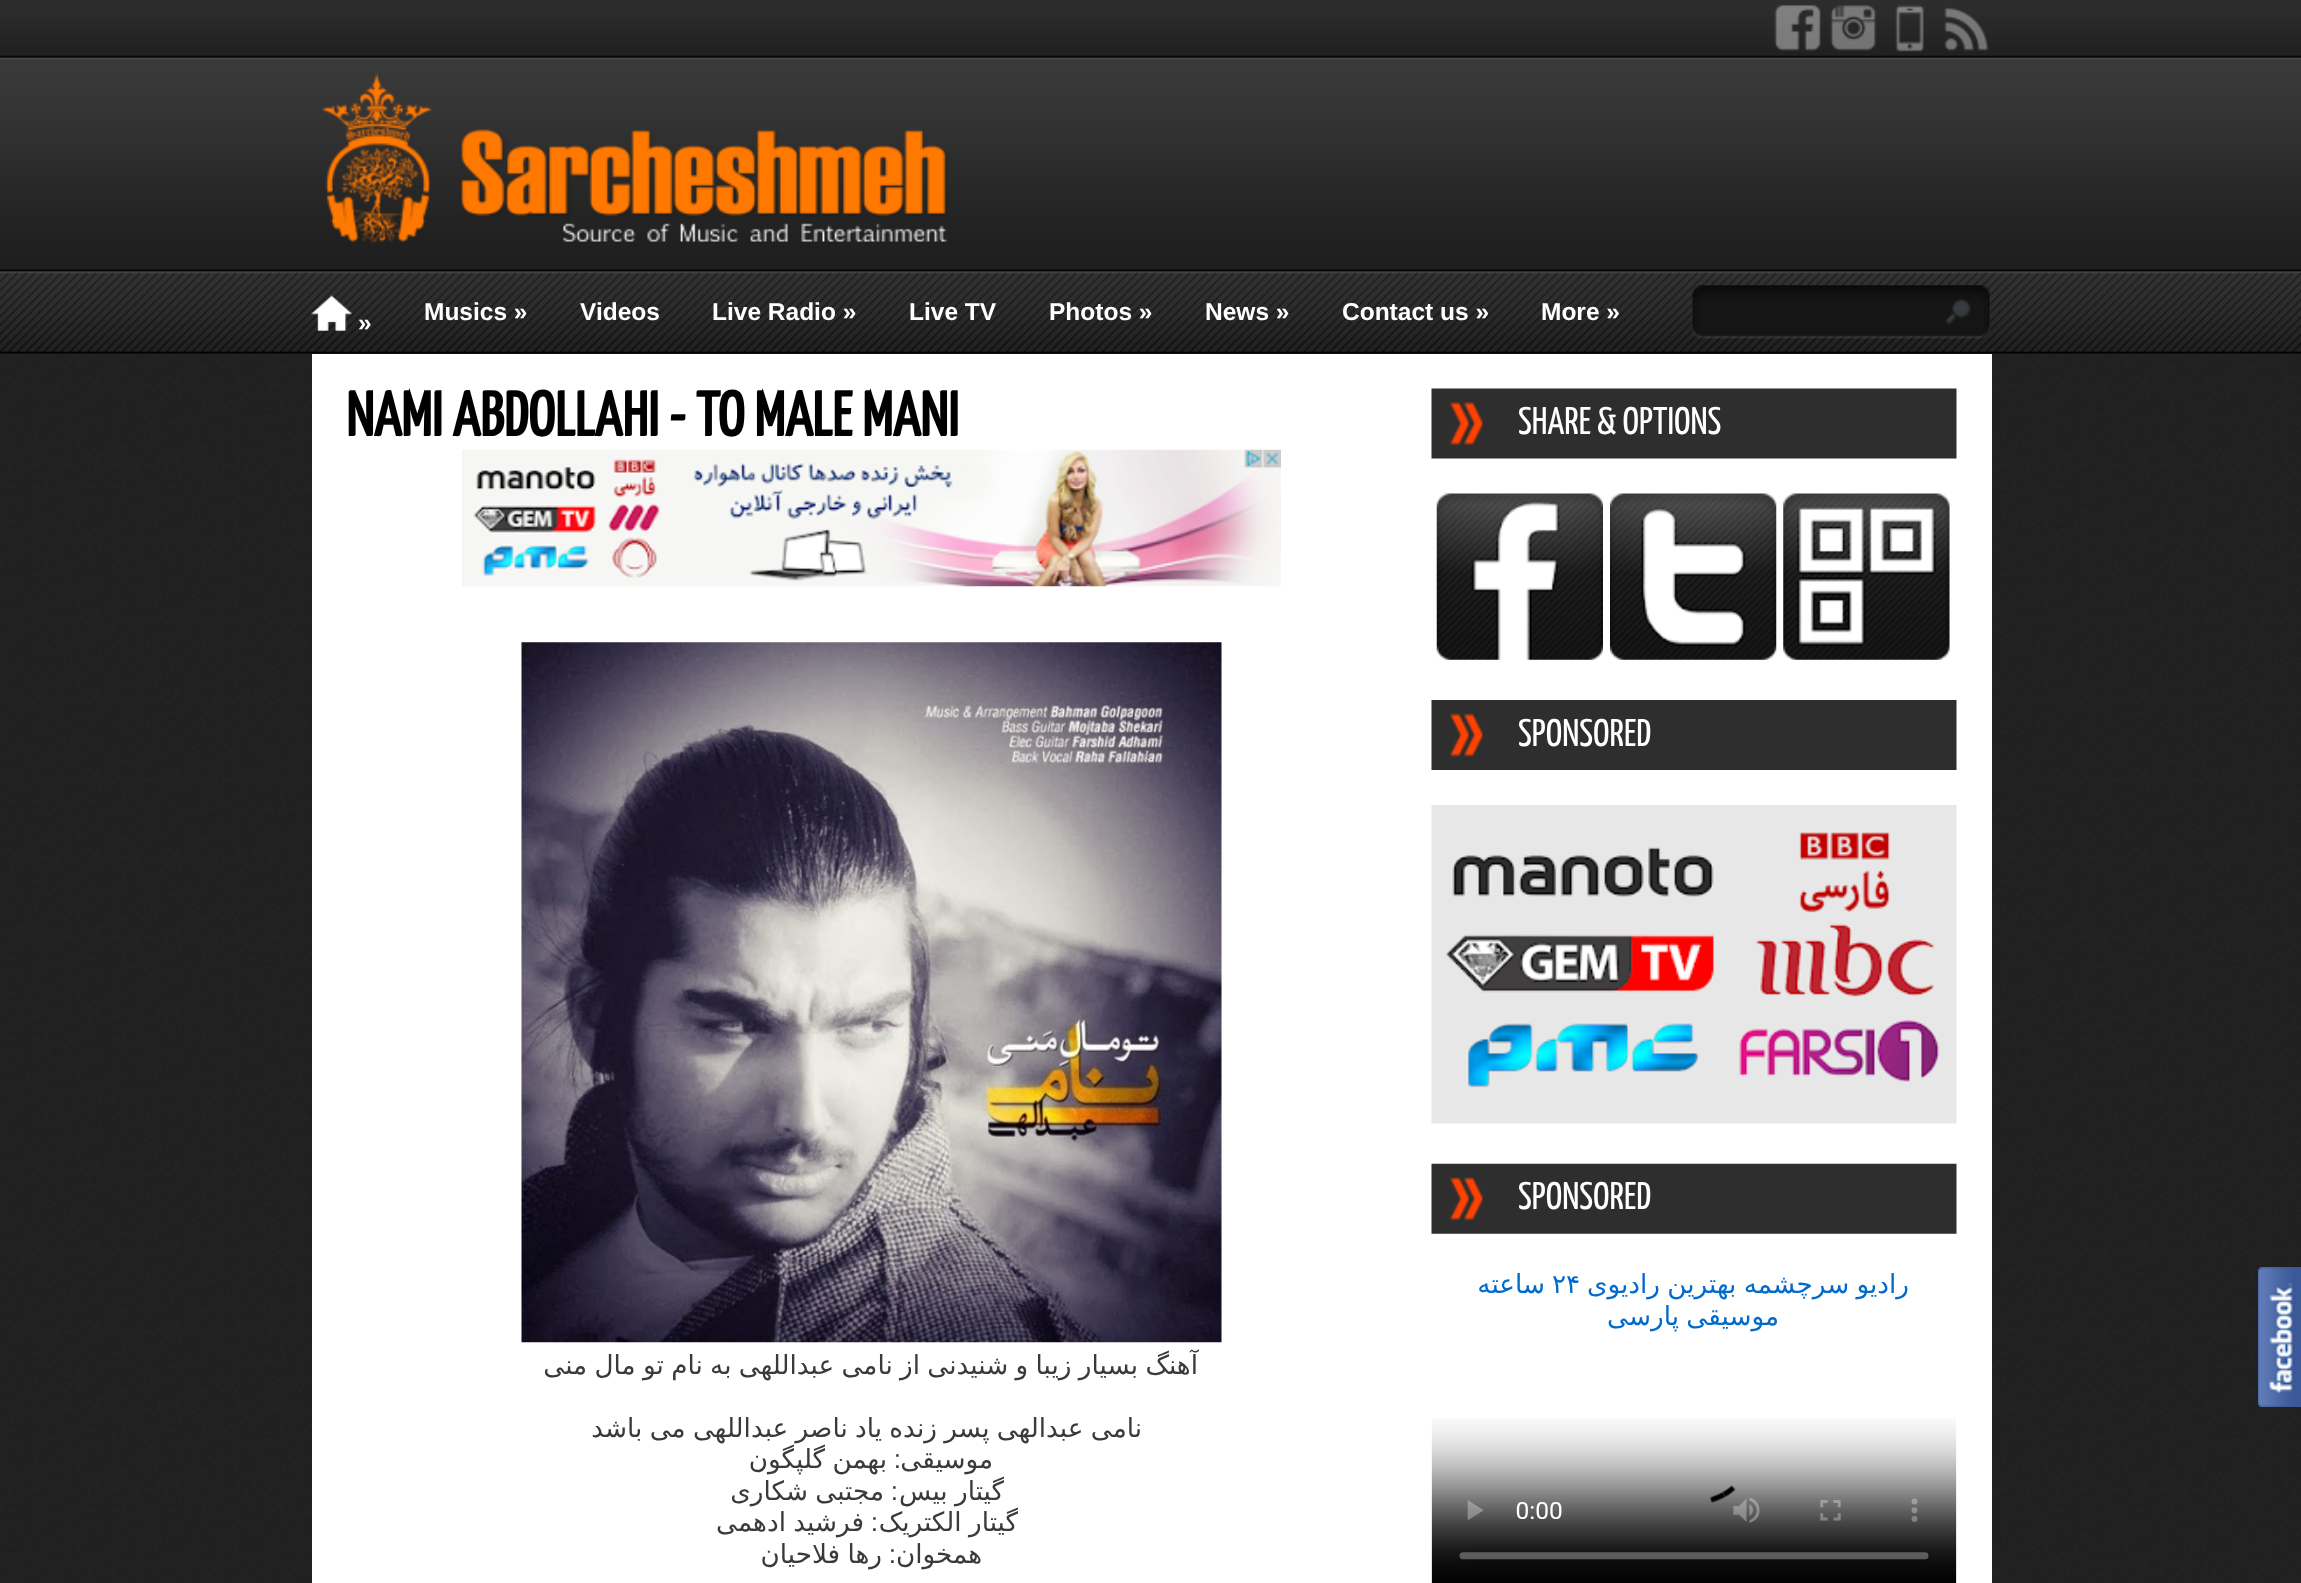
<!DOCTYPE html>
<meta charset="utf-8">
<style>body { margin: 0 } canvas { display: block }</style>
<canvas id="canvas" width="2301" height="1583"></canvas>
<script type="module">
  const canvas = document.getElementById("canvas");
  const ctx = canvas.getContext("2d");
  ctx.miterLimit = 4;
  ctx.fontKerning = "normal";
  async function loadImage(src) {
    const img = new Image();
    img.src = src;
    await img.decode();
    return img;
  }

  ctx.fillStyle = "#ffffff";
  ctx.fillRect(0, 0, 2301, 1583);
  ctx.drawImage(await loadImage("img1.png"), 0, 353, 2301, 1230);
  ctx.drawImage(await loadImage("img2.png"), 0, 0, 2301, 354);
  ctx.drawImage(await loadImage("img3.png"), 1944, 7, 45, 44);
  ctx.drawImage(await loadImage("img4.png"), 1895, 5, 29, 47);
  ctx.drawImage(await loadImage("img5.png"), 1830, 5, 47, 46);
  ctx.drawImage(await loadImage("img6.png"), 1774, 5, 47, 46);
  ctx.drawImage(await loadImage("img7.png"), 321, 73, 627, 171);
  ctx.drawImage(await loadImage("img8.png"), 1691, 285, 300, 54);
  ctx.font = "bold 24.5px Liberation Sans";
  ctx.fillText("More »", 1541, 320);
  ctx.fillText("Contact us »", 1342, 320);
  ctx.fillText("News »", 1205, 320);
  ctx.fillText("Photos »", 1049, 320);
  ctx.fillText("Live TV", 909, 320);
  ctx.fillText("Live Radio »", 712, 320);
  ctx.fillText("Videos", 580, 320);
  ctx.fillText("Musics »", 424, 320);
  ctx.fillText("»", 358, 331);
  ctx.drawImage(await loadImage("img9.png"), 311, 295, 41, 36);
  ctx.drawImage(await loadImage("img10.png"), 2258, 1267, 43, 140);
  ctx.fillRect(312, 354, 1680, 1229);
  ctx.drawImage(await loadImage("img11.png"), 1431, 388, 526, 71);
  ctx.font = "200 38.5px Yanone Kaffeesatz";
  ctx.fillText("SHARE & OPTIONS", 1518, 434);
  ctx.drawImage(await loadImage("img12.png"), 1783, 493, 167, 167);
  ctx.drawImage(await loadImage("img13.png"), 1610, 493, 167, 167);
  ctx.drawImage(await loadImage("img14.png"), 1436, 493, 167, 167);
  ctx.drawImage(await loadImage("img15.png"), 1431, 700, 526, 70);
  ctx.fillText("SPONSORED", 1518, 746);
  ctx.drawImage(await loadImage("img16.png"), 1431, 805, 526, 319);
  ctx.drawImage(await loadImage("img17.png"), 1431, 1163, 526, 71);
  ctx.fillText("SPONSORED", 1518, 1209);
  ctx.wordSpacing = "-1px";
  ctx.direction = "rtl";
  ctx.font = "26.25px DejaVu Sans";
  ctx.fillStyle = "#006acd";
  ctx.fillText("رادیو سرچشمه بهترین رادیوی", 1909, 1293);
  ctx.wordSpacing = "0px";
  ctx.direction = "ltr";
  ctx.fillText("۲۴", 1552, 1293);
  ctx.direction = "rtl";
  ctx.fillText("ساعته", 1545, 1293);
  ctx.wordSpacing = "-1px";
  ctx.fillText("موسیقی پارسی", 1779, 1325);
  ctx.drawImage(await loadImage("img18.png"), 1431, 1418, 526, 165);
  ctx.wordSpacing = "0px";
  ctx.direction = "ltr";
  ctx.font = "bold 63px Yanone Kaffeesatz";
  ctx.fillStyle = "#000000";
  ctx.fillText("NAMI ABDOLLAHI - TO MALE MANI", 346, 436);
  ctx.drawImage(await loadImage("img19.png"), 462, 449, 819, 138);
  ctx.drawImage(await loadImage("img20.png"), 521, 642, 701, 701);
  ctx.wordSpacing = "-1px";
  ctx.direction = "rtl";
  ctx.font = "26.25px DejaVu Sans";
  ctx.fillStyle = "#3a3a3a";
  ctx.fillText("آهنگ بسیار زیبا و شنیدنی از نامی عبداللهی به نام تو مال منی", 1198, 1374);
  ctx.fillText("نامی عبدالهی پسر زنده یاد ناصر عبداللهی می باشد", 1142, 1437);
  ctx.wordSpacing = "0px";
  ctx.fillText("موسیقی", 993, 1468);
  ctx.font = "26.25px Liberation Sans";
  ctx.fillText(":", 901, 1468);
  ctx.wordSpacing = "-1px";
  ctx.font = "26.25px DejaVu Sans";
  ctx.fillText("بهمن گلپگون", 887, 1468);
  ctx.fillText("گیتار بیس", 1004, 1500);
  ctx.wordSpacing = "0px";
  ctx.font = "26.25px Liberation Sans";
  ctx.fillText(":", 898, 1500);
  ctx.wordSpacing = "-1px";
  ctx.font = "26.25px DejaVu Sans";
  ctx.fillText("مجتبی شکاری", 884, 1500);
  ctx.fillText("گیتار الکتریک", 1018, 1531);
  ctx.wordSpacing = "0px";
  ctx.font = "26.25px Liberation Sans";
  ctx.fillText(":", 878, 1531);
  ctx.wordSpacing = "-1px";
  ctx.font = "26.25px DejaVu Sans";
  ctx.fillText("فرشید ادهمی", 864, 1531);
  ctx.wordSpacing = "0px";
  ctx.fillText("همخوان", 982, 1563);
  ctx.font = "26.25px Liberation Sans";
  ctx.fillText(":", 896, 1563);
  ctx.wordSpacing = "-1px";
  ctx.font = "26.25px DejaVu Sans";
  ctx.fillText("رها فلاحیان", 882, 1563);
</script>
